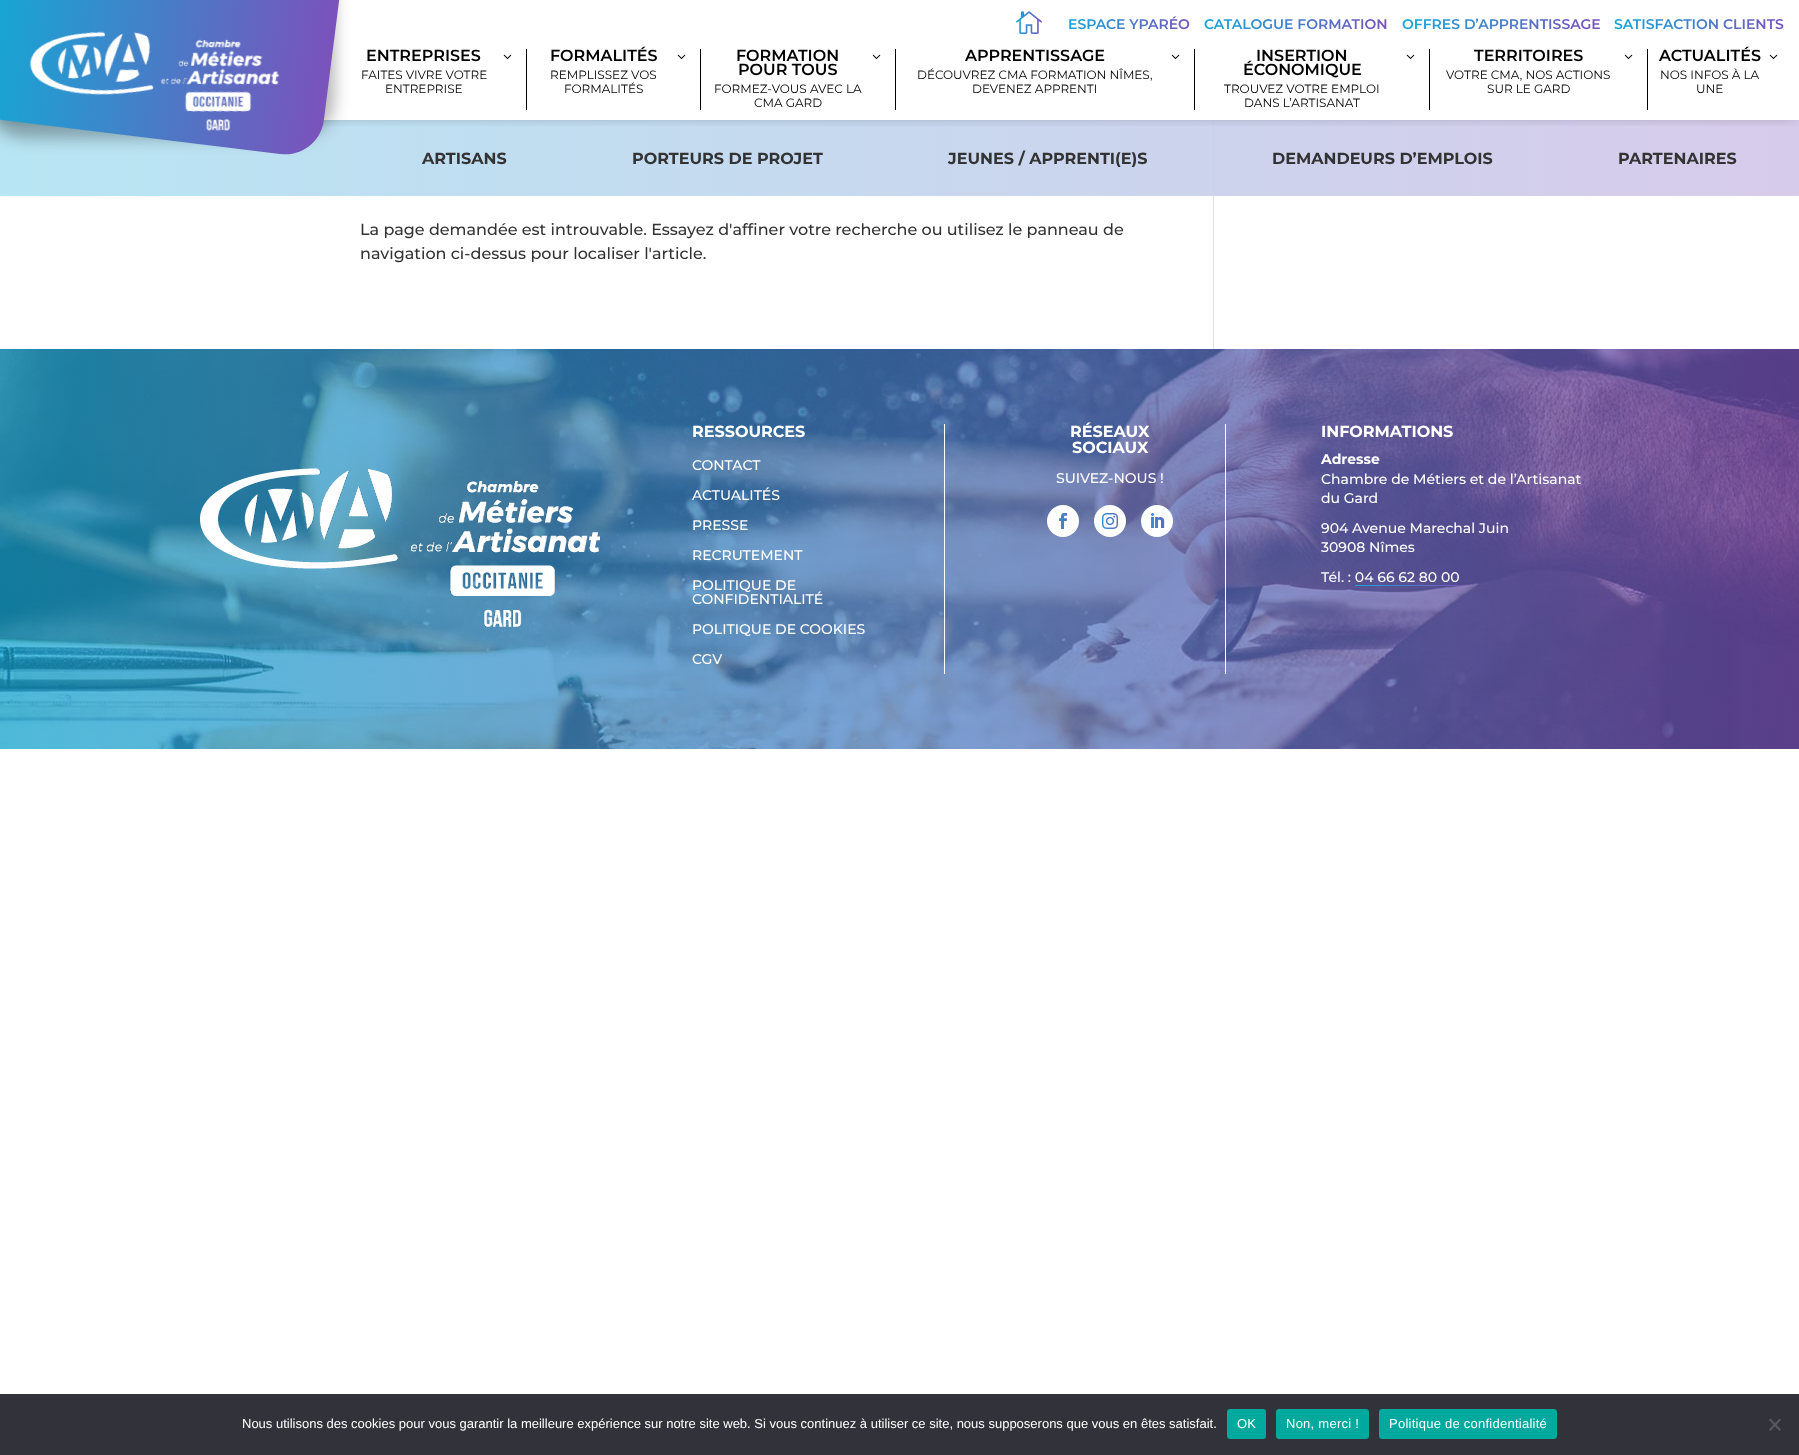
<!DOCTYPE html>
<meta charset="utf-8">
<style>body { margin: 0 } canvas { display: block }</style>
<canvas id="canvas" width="1799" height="1455"></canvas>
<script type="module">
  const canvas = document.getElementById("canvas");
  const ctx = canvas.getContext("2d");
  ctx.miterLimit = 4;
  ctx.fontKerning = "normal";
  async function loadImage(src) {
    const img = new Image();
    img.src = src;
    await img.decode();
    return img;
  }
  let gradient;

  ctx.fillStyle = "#ffffff";
  ctx.fillRect(0, 0, 1799, 1455);
  ctx.fillStyle = "#e2e2e2";
  ctx.fillRect(1213, 120, 1, 229);
  ctx.fillStyle = "rgba(255, 255, 255, 0.85)";
  ctx.fillRect(1213, 120, 1, 76);
  gradient = ctx.createLinearGradient(0, 158, 1799, 158);
  gradient.addColorStop(0, "rgba(19, 169, 216, 0.3)");
  gradient.addColorStop(1, "rgba(123, 82, 187, 0.3)");
  ctx.fillStyle = gradient;
  ctx.fillRect(0, 120, 1799, 76);
  ctx.save();
  ctx.beginPath();
  ctx.rect(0, 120, 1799, 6);
  ctx.clip();
  ctx.fillStyle = "rgba(0, 0, 0, 0.3)";
  ctx.filter = "blur(7px)";
  ctx.beginPath();
  ctx.rect(4, 4, 1791, 112);
  ctx.fill();
  ctx.filter = "none";
  ctx.restore();
  ctx.fillStyle = "rgba(0, 0, 0, 0.3)";
  ctx.filter = "blur(8px)";
  ctx.beginPath();
  ctx.roundRect(-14, -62, 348, 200, 38);
  ctx.fill();
  ctx.filter = "none";
  gradient = ctx.createLinearGradient(-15, -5.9, 335, 37);
  gradient.addColorStop(0, "#13a9d5");
  gradient.addColorStop(1, "#7b52bb");
  ctx.fillStyle = gradient;
  ctx.beginPath();
  ctx.moveTo(0, -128);
  ctx.lineTo(350, -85);
  ctx.lineTo(324, 119);
  ctx.bezierCurveTo(322, 141, 302, 157, 280, 154);
  ctx.lineTo(-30, 116);
  ctx.closePath();
  ctx.fill();
  ctx.drawImage(await loadImage("img1.png"), 29, 31, 251, 100);
  ctx.drawImage(await loadImage("img2.png"), 1016, 11, 26, 23);
  ctx.font = "100 14px 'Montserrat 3'";
  gradient = ctx.createLinearGradient(1063, 24, 1195, 24);
  gradient.addColorStop(0, "#13a9d8");
  gradient.addColorStop(1, "#7b52bb");
  ctx.fillStyle = gradient;
  ctx.fillText("ESPACE YPARÉO", 1068, 29);
  gradient = ctx.createLinearGradient(1199, 24, 1393, 24);
  gradient.addColorStop(0, "#13a9d8");
  gradient.addColorStop(1, "#7b52bb");
  ctx.fillStyle = gradient;
  ctx.fillText("CATALOGUE FORMATION", 1204, 29);
  gradient = ctx.createLinearGradient(1397, 24, 1605, 24);
  gradient.addColorStop(0, "#13a9d8");
  gradient.addColorStop(1, "#7b52bb");
  ctx.fillStyle = gradient;
  ctx.fillText("OFFRES D’APPRENTISSAGE", 1402, 29);
  gradient = ctx.createLinearGradient(1609, 24, 1789, 24);
  gradient.addColorStop(0, "#13a9d8");
  gradient.addColorStop(1, "#7b52bb");
  ctx.fillStyle = gradient;
  ctx.fillText("SATISFACTION CLIENTS", 1614, 29);
  ctx.fillStyle = "#000000";
  ctx.fillRect(526, 49, 1, 61);
  ctx.font = "100 16px 'Montserrat 3'";
  ctx.fillText("ENTREPRISES", 366, 61);
  ctx.drawImage(await loadImage("img3.png"), 503, 54, 9, 5);
  ctx.font = "12px Montserrat";
  ctx.fillText("FAITES VIVRE VOTRE", 361, 79);
  ctx.fillText("ENTREPRISE", 385, 93);
  ctx.fillRect(700, 49, 1, 61);
  ctx.font = "100 16px 'Montserrat 3'";
  ctx.fillText("FORMALITÉS", 550, 61);
  ctx.drawImage(await loadImage("img3.png"), 677, 54, 9, 5);
  ctx.font = "12px Montserrat";
  ctx.fillText("REMPLISSEZ VOS", 550, 79);
  ctx.fillText("FORMALITÉS", 564, 93);
  ctx.fillRect(895, 49, 1, 61);
  ctx.font = "100 16px 'Montserrat 3'";
  ctx.fillText("FORMATION", 736, 61);
  ctx.drawImage(await loadImage("img3.png"), 872, 54, 9, 5);
  ctx.fillText("POUR TOUS", 738, 75);
  ctx.font = "12px Montserrat";
  ctx.fillText("FORMEZ-VOUS AVEC LA", 714, 93);
  ctx.fillText("CMA GARD", 754, 107);
  ctx.fillRect(1194, 49, 1, 61);
  ctx.font = "100 16px 'Montserrat 3'";
  ctx.fillText("APPRENTISSAGE", 965, 61);
  ctx.drawImage(await loadImage("img3.png"), 1171, 54, 9, 5);
  ctx.font = "12px Montserrat";
  ctx.fillText("DÉCOUVREZ CMA FORMATION NÎMES,", 917, 79);
  ctx.fillText("DEVENEZ APPRENTI", 972, 93);
  ctx.fillRect(1429, 49, 1, 61);
  ctx.font = "100 16px 'Montserrat 3'";
  ctx.fillText("INSERTION", 1256, 61);
  ctx.drawImage(await loadImage("img3.png"), 1406, 54, 9, 5);
  ctx.fillText("ÉCONOMIQUE", 1243, 75);
  ctx.font = "12px Montserrat";
  ctx.fillText("TROUVEZ VOTRE EMPLOI", 1224, 93);
  ctx.fillText("DANS L’ARTISANAT", 1244, 107);
  ctx.fillRect(1647, 49, 1, 61);
  ctx.font = "100 16px 'Montserrat 3'";
  ctx.fillText("TERRITOIRES", 1474, 61);
  ctx.drawImage(await loadImage("img3.png"), 1624, 54, 9, 5);
  ctx.font = "12px Montserrat";
  ctx.fillText("VOTRE CMA, NOS ACTIONS", 1446, 79);
  ctx.fillText("SUR LE GARD", 1487, 93);
  ctx.font = "100 16px 'Montserrat 3'";
  ctx.fillText("ACTUALITÉS", 1659, 61);
  ctx.drawImage(await loadImage("img3.png"), 1769, 54, 9, 5);
  ctx.font = "12px Montserrat";
  ctx.fillText("NOS INFOS À LA", 1660, 79);
  ctx.fillText("UNE", 1696, 93);
  ctx.font = "100 16px 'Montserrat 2'";
  ctx.fillStyle = "#333333";
  ctx.fillText("ARTISANS", 422, 164);
  ctx.fillText("PORTEURS DE PROJET", 632, 164);
  ctx.fillText("JEUNES / APPRENTI(E)S", 948, 164);
  ctx.fillText("DEMANDEURS D’EMPLOIS", 1272, 164);
  ctx.fillText("PARTENAIRES", 1618, 164);
  ctx.font = "100 16px Montserrat";
  ctx.fillText("La page demandée est introuvable. Essayez d'affiner votre recherche ou utilisez le panneau de", 360, 235);
  ctx.fillText("navigation ci-dessus pour localiser l'article.", 360, 259);
  ctx.drawImage(await loadImage("img4.png"), 0, 349, 1799, 400);
  ctx.drawImage(await loadImage("img5.png"), 200, 468, 400, 159);
  ctx.fillStyle = "#ffffff";
  ctx.fillRect(944, 424, 1, 250);
  ctx.font = "100 16px 'Montserrat 2'";
  ctx.fillText("RESSOURCES", 692, 437);
  ctx.font = "100 14px Montserrat";
  ctx.fillText("CONTACT", 692, 470);
  ctx.fillText("ACTUALITÉS", 692, 500);
  ctx.fillText("PRESSE", 692, 530);
  ctx.fillText("RECRUTEMENT", 692, 560);
  ctx.fillText("POLITIQUE DE", 692, 590);
  ctx.fillText("CONFIDENTIALITÉ", 692, 604);
  ctx.fillText("POLITIQUE DE COOKIES", 692, 634);
  ctx.fillText("CGV", 692, 664);
  ctx.fillRect(1225, 424, 1, 250);
  ctx.font = "100 16px 'Montserrat 2'";
  ctx.fillText("RÉSEAUX", 1070, 437);
  ctx.fillText("SOCIAUX", 1072, 453);
  ctx.font = "100 14px Montserrat";
  ctx.fillText("SUIVEZ-NOUS !", 1056, 483);
  ctx.beginPath();
  ctx.arc(1063, 521, 16, 0, Math.PI * 2);
  ctx.fill();
  ctx.drawImage(await loadImage("img6.png"), 1059, 513, 8, 16);
  ctx.beginPath();
  ctx.arc(1110, 521, 16, 0, Math.PI * 2);
  ctx.fill();
  ctx.drawImage(await loadImage("img7.png"), 1102, 513, 16, 16);
  ctx.beginPath();
  ctx.arc(1157, 521, 16, 0, Math.PI * 2);
  ctx.fill();
  ctx.drawImage(await loadImage("img8.png"), 1151, 513, 14, 15);
  ctx.font = "100 16px 'Montserrat 2'";
  ctx.fillText("INFORMATIONS", 1321, 437);
  ctx.font = "100 14px 'Montserrat 2'";
  ctx.fillText("Adresse", 1321, 464);
  ctx.font = "100 14px Montserrat";
  ctx.fillText("Chambre de Métiers et de l’Artisanat", 1321, 484);
  ctx.fillText("du Gard", 1321, 503);
  ctx.fillText("904 Avenue Marechal Juin", 1321, 533);
  ctx.fillText("30908 Nîmes", 1321, 552);
  ctx.fillText("Tél. : 04 66 62 80 00", 1321, 582);
  gradient = ctx.createLinearGradient(1145, 585, 1460, 585);
  gradient.addColorStop(0, "#13a9d8");
  gradient.addColorStop(0.33, "#7b52bb");
  gradient.addColorStop(0.66, "#13a9d8");
  gradient.addColorStop(1, "#7b52bb");
  ctx.fillStyle = gradient;
  ctx.fillRect(1355, 585, 105, 1);
  ctx.fillStyle = "#32323a";
  ctx.fillRect(0, 1394, 1799, 61);
  ctx.font = "13px Liberation Sans";
  ctx.fillStyle = "#ffffff";
  ctx.fillText("Nous utilisons des cookies pour vous garantir la meilleure expérience sur notre site web. Si vous continuez à utiliser ce site, nous supposerons que vous en êtes satisfait.", 242, 1428);
  ctx.fillStyle = "#00a99d";
  ctx.beginPath();
  ctx.roundRect(1227, 1409, 39, 30, 3);
  ctx.fill();
  ctx.letterSpacing = "0.25px";
  ctx.fillStyle = "#ffffff";
  ctx.fillText("OK", 1237, 1428);
  ctx.fillStyle = "#00a99d";
  ctx.beginPath();
  ctx.roundRect(1276, 1409, 93, 30, 3);
  ctx.fill();
  ctx.fillStyle = "#ffffff";
  ctx.fillText("Non, merci !", 1286, 1428);
  ctx.fillStyle = "#00a99d";
  ctx.beginPath();
  ctx.roundRect(1379, 1409, 178, 30, 3);
  ctx.fill();
  ctx.fillStyle = "#ffffff";
  ctx.fillText("Politique de confidentialité", 1389, 1428);
  ctx.fillStyle = "#59595d";
  ctx.beginPath();
  ctx.moveTo(1779.5, 1418.5);
  ctx.lineTo(1781, 1420);
  ctx.lineTo(1770.5, 1431);
  ctx.lineTo(1769, 1429.5);
  ctx.closePath();
  ctx.fill();
  ctx.beginPath();
  ctx.moveTo(1769, 1420);
  ctx.lineTo(1770.5, 1418.5);
  ctx.lineTo(1781, 1429.5);
  ctx.lineTo(1779.5, 1431);
  ctx.closePath();
  ctx.fill();
</script>
